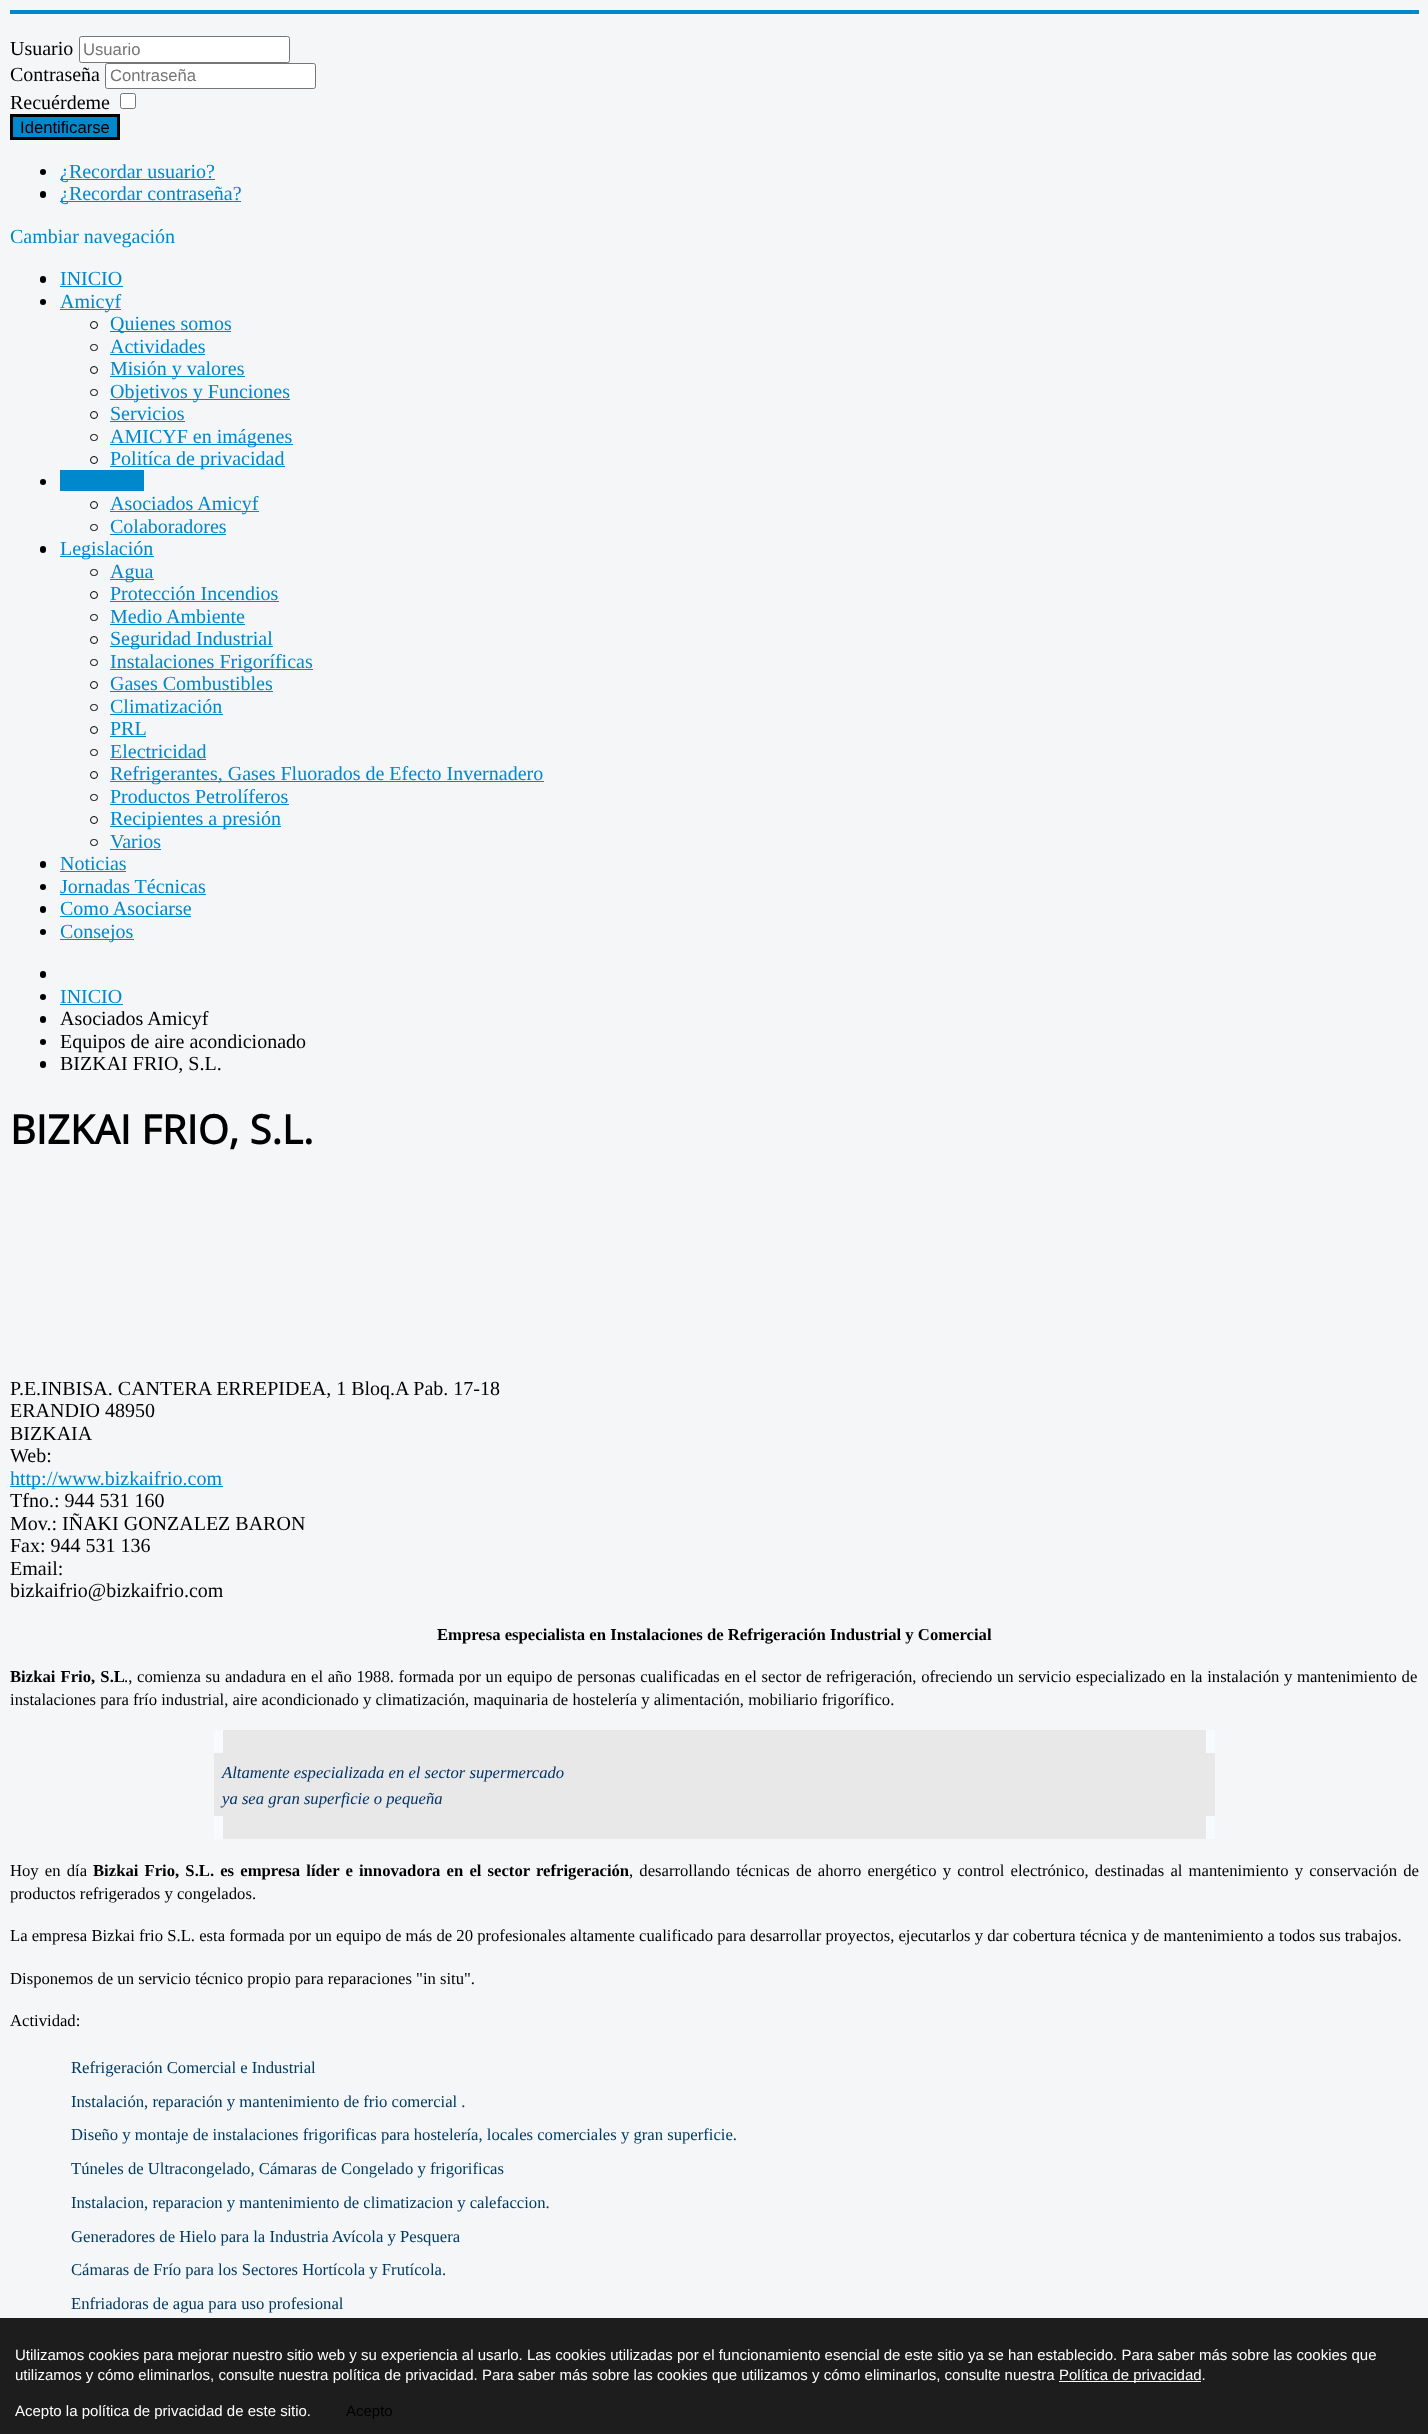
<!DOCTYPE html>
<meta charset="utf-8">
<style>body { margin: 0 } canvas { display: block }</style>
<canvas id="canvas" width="1428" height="2434"></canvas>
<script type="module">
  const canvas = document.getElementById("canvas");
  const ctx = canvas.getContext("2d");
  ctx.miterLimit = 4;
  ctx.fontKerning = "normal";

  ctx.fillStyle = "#f4f6f7";
  ctx.fillRect(0, 0, 1428, 2434);
  ctx.fillStyle = "#0088cc";
  ctx.fillRect(10, 10, 1409, 4);
  ctx.font = "20px Liberation Serif";
  ctx.fillStyle = "#000000";
  ctx.fillText("Usuario", 10, 55);
  ctx.fillStyle = "#ffffff";
  ctx.beginPath();
  ctx.roundRect(79.5, 36.5, 210, 26, 2);
  ctx.fill();
  ctx.strokeStyle = "#767676";
  ctx.stroke();
  ctx.font = "16.67px Liberation Sans";
  ctx.fillStyle = "#757575";
  ctx.fillText("Usuario", 83, 55);
  ctx.font = "20px Liberation Serif";
  ctx.fillStyle = "#000000";
  ctx.fillText("Contraseña", 10, 81);
  ctx.fillStyle = "#ffffff";
  ctx.beginPath();
  ctx.roundRect(105.5, 63.5, 210, 25, 2);
  ctx.fill();
  ctx.stroke();
  ctx.font = "16.67px Liberation Sans";
  ctx.fillStyle = "#757575";
  ctx.fillText("Contraseña", 110, 81);
  ctx.font = "20px Liberation Serif";
  ctx.fillStyle = "#000000";
  ctx.fillText("Recuérdeme", 10, 109);
  ctx.fillStyle = "#ffffff";
  ctx.beginPath();
  ctx.roundRect(120.5, 93.5, 15, 15, 2);
  ctx.fill();
  ctx.stroke();
  ctx.fillStyle = "#0088cc";
  ctx.beginPath();
  ctx.rect(11.5, 115.5, 107, 23);
  ctx.fill();
  ctx.strokeStyle = "#000000";
  ctx.lineWidth = 3;
  ctx.stroke();
  ctx.font = "16.67px Liberation Sans";
  ctx.fillStyle = "#000000";
  ctx.fillText("Identificarse", 20, 133);
  ctx.beginPath();
  ctx.arc(43, 172, 3, 0, Math.PI * 2);
  ctx.fill();
  ctx.fillStyle = "#0088cc";
  ctx.fillRect(60, 179, 155, 1);
  ctx.font = "20px Liberation Serif";
  ctx.fillText("¿Recordar usuario?", 60, 178);
  ctx.fillStyle = "#000000";
  ctx.beginPath();
  ctx.roundRect(40, 191, 6, 7, 3);
  ctx.fill();
  ctx.fillStyle = "#0088cc";
  ctx.fillRect(60, 201, 181, 1);
  ctx.fillText("¿Recordar contraseña?", 60, 200);
  ctx.fillText("Cambiar navegación", 10, 243);
  ctx.fillStyle = "#000000";
  ctx.beginPath();
  ctx.roundRect(40, 276, 6, 7, 3);
  ctx.fill();
  ctx.fillStyle = "#0088cc";
  ctx.fillText("INICIO", 60, 285);
  ctx.fillRect(60, 286, 63, 1);
  ctx.fillStyle = "#000000";
  ctx.beginPath();
  ctx.arc(43, 302, 3, 0, Math.PI * 2);
  ctx.fill();
  ctx.fillStyle = "#0088cc";
  ctx.fillRect(60, 309, 61, 1);
  ctx.fillText("Amicyf", 60, 308);
  ctx.beginPath();
  ctx.arc(94, 325, 3.5, 0, Math.PI * 2);
  ctx.lineWidth = 1;
  ctx.stroke();
  ctx.fillRect(110, 331, 121, 1);
  ctx.fillText("Quienes somos", 110, 330);
  ctx.beginPath();
  ctx.roundRect(90.5, 344.5, 7, 6, 3);
  ctx.stroke();
  ctx.fillText("Actividades", 110, 353);
  ctx.fillRect(110, 354, 95, 1);
  ctx.beginPath();
  ctx.arc(94, 370, 3.5, 0, Math.PI * 2);
  ctx.stroke();
  ctx.fillRect(110, 376, 135, 1);
  ctx.fillText("Misión y valores", 110, 375);
  ctx.beginPath();
  ctx.roundRect(90.5, 389.5, 7, 6, 3);
  ctx.stroke();
  ctx.fillRect(110, 399, 180, 1);
  ctx.fillText("Objetivos y Funciones", 110, 398);
  ctx.beginPath();
  ctx.arc(94, 415, 3.5, 0, Math.PI * 2);
  ctx.stroke();
  ctx.fillText("Servicios", 110, 420);
  ctx.fillRect(110, 421, 75, 1);
  ctx.beginPath();
  ctx.roundRect(90.5, 434.5, 7, 6, 3);
  ctx.stroke();
  ctx.fillRect(110, 444, 183, 1);
  ctx.fillText("AMICYF en imágenes", 110, 443);
  ctx.beginPath();
  ctx.arc(94, 460, 3.5, 0, Math.PI * 2);
  ctx.stroke();
  ctx.fillRect(110, 466, 175, 1);
  ctx.fillText("Politíca de privacidad", 110, 465);
  ctx.fillStyle = "#000000";
  ctx.beginPath();
  ctx.arc(43, 482, 3, 0, Math.PI * 2);
  ctx.fill();
  ctx.fillStyle = "#0088cc";
  ctx.fillRect(60, 470, 84, 21);
  ctx.beginPath();
  ctx.arc(94, 505, 3.5, 0, Math.PI * 2);
  ctx.stroke();
  ctx.fillRect(110, 511, 149, 1);
  ctx.fillText("Asociados Amicyf", 110, 510);
  ctx.beginPath();
  ctx.roundRect(90.5, 524.5, 7, 6, 3);
  ctx.stroke();
  ctx.fillText("Colaboradores", 110, 533);
  ctx.fillRect(110, 534, 116, 1);
  ctx.fillStyle = "#000000";
  ctx.beginPath();
  ctx.roundRect(40, 546, 6, 7, 3);
  ctx.fill();
  ctx.fillStyle = "#0088cc";
  ctx.fillRect(60, 556, 94, 1);
  ctx.fillText("Legislación", 60, 555);
  ctx.beginPath();
  ctx.roundRect(90.5, 569.5, 7, 6, 3);
  ctx.stroke();
  ctx.fillRect(110, 579, 44, 1);
  ctx.fillText("Agua", 110, 578);
  ctx.beginPath();
  ctx.arc(94, 595, 3.5, 0, Math.PI * 2);
  ctx.stroke();
  ctx.fillText("Protección Incendios", 110, 600);
  ctx.fillRect(110, 601, 169, 1);
  ctx.beginPath();
  ctx.roundRect(90.5, 614.5, 7, 6, 3);
  ctx.stroke();
  ctx.fillText("Medio Ambiente", 110, 623);
  ctx.fillRect(110, 624, 135, 1);
  ctx.beginPath();
  ctx.arc(94, 640, 3.5, 0, Math.PI * 2);
  ctx.stroke();
  ctx.fillRect(110, 646, 163, 1);
  ctx.fillText("Seguridad Industrial", 110, 645);
  ctx.beginPath();
  ctx.roundRect(90.5, 659.5, 7, 6, 3);
  ctx.stroke();
  ctx.fillRect(110, 669, 203, 1);
  ctx.fillText("Instalaciones Frigoríficas", 110, 668);
  ctx.beginPath();
  ctx.arc(94, 685, 3.5, 0, Math.PI * 2);
  ctx.stroke();
  ctx.fillText("Gases Combustibles", 110, 690);
  ctx.fillRect(110, 691, 163, 1);
  ctx.beginPath();
  ctx.roundRect(90.5, 704.5, 7, 6, 3);
  ctx.stroke();
  ctx.fillText("Climatización", 110, 713);
  ctx.fillRect(110, 714, 113, 1);
  ctx.beginPath();
  ctx.arc(94, 730, 3.5, 0, Math.PI * 2);
  ctx.stroke();
  ctx.fillText("PRL", 110, 735);
  ctx.fillRect(110, 736, 36, 1);
  ctx.beginPath();
  ctx.roundRect(90.5, 749.5, 7, 6, 3);
  ctx.stroke();
  ctx.fillText("Electricidad", 110, 758);
  ctx.fillRect(110, 759, 96, 1);
  ctx.beginPath();
  ctx.arc(94, 775, 3.5, 0, Math.PI * 2);
  ctx.stroke();
  ctx.fillRect(110, 781, 434, 1);
  ctx.fillText("Refrigerantes, Gases Fluorados de Efecto Invernadero", 110, 780);
  ctx.beginPath();
  ctx.roundRect(90.5, 794.5, 7, 6, 3);
  ctx.stroke();
  ctx.fillText("Productos Petrolíferos", 110, 803);
  ctx.fillRect(110, 804, 179, 1);
  ctx.beginPath();
  ctx.arc(94, 820, 3.5, 0, Math.PI * 2);
  ctx.stroke();
  ctx.fillRect(110, 826, 171, 1);
  ctx.fillText("Recipientes a presión", 110, 825);
  ctx.beginPath();
  ctx.roundRect(90.5, 839.5, 7, 6, 3);
  ctx.stroke();
  ctx.fillText("Varios", 110, 848);
  ctx.fillRect(110, 849, 51, 1);
  ctx.fillStyle = "#000000";
  ctx.beginPath();
  ctx.roundRect(40, 861, 6, 7, 3);
  ctx.fill();
  ctx.fillStyle = "#0088cc";
  ctx.fillText("Noticias", 60, 870);
  ctx.fillRect(60, 871, 66, 1);
  ctx.fillStyle = "#000000";
  ctx.beginPath();
  ctx.arc(43, 887, 3, 0, Math.PI * 2);
  ctx.fill();
  ctx.fillStyle = "#0088cc";
  ctx.fillText("Jornadas Técnicas", 60, 893);
  ctx.fillRect(60, 894, 146, 1);
  ctx.fillStyle = "#000000";
  ctx.beginPath();
  ctx.roundRect(40, 906, 6, 7, 3);
  ctx.fill();
  ctx.fillStyle = "#0088cc";
  ctx.fillText("Como Asociarse", 60, 915);
  ctx.fillRect(60, 916, 131, 1);
  ctx.fillStyle = "#000000";
  ctx.beginPath();
  ctx.arc(43, 932, 3, 0, Math.PI * 2);
  ctx.fill();
  ctx.fillStyle = "#0088cc";
  ctx.fillRect(60, 939, 74, 1);
  ctx.fillText("Consejos", 60, 938);
  ctx.fillStyle = "#000000";
  ctx.beginPath();
  ctx.roundRect(40, 971, 6, 7, 3);
  ctx.fill();
  ctx.beginPath();
  ctx.arc(43, 997, 3, 0, Math.PI * 2);
  ctx.fill();
  ctx.fillStyle = "#0088cc";
  ctx.fillText("INICIO", 60, 1003);
  ctx.fillRect(60, 1004, 63, 1);
  ctx.fillStyle = "#000000";
  ctx.beginPath();
  ctx.roundRect(40, 1016, 6, 7, 3);
  ctx.fill();
  ctx.fillText("Asociados Amicyf", 60, 1025);
  ctx.beginPath();
  ctx.arc(43, 1042, 3, 0, Math.PI * 2);
  ctx.fill();
  ctx.fillText("Equipos de aire acondicionado", 60, 1048);
  ctx.beginPath();
  ctx.roundRect(40, 1061, 6, 7, 3);
  ctx.fill();
  ctx.fillText("BIZKAI FRIO, S.L.", 60, 1070);
  ctx.font = "bold 40px Open Sans";
  ctx.fillText("BIZKAI FRIO, S.L.", 10, 1144);
  ctx.font = "20px Liberation Serif";
  ctx.fillText("P.E.INBISA. CANTERA ERREPIDEA, 1 Bloq.A Pab. 17-18", 10, 1395);
  ctx.fillText("ERANDIO 48950", 10, 1417);
  ctx.fillText("BIZKAIA", 10, 1440);
  ctx.fillText("Web:", 10, 1462);
  ctx.fillStyle = "#0088cc";
  ctx.fillRect(10, 1486, 213, 1);
  ctx.fillText("http://www.bizkaifrio.com", 10, 1485);
  ctx.fillStyle = "#000000";
  ctx.fillText("Tfno.: 944 531 160", 10, 1507);
  ctx.fillText("Mov.: IÑAKI GONZALEZ BARON", 10, 1530);
  ctx.fillText("Fax: 944 531 136", 10, 1552);
  ctx.fillText("Email:", 10, 1575);
  ctx.fillText("bizkaifrio@bizkaifrio.com", 10, 1597);
  ctx.font = "bold 16.67px Liberation Serif";
  ctx.fillText("Empresa especialista en Instalaciones de Refrigeración Industrial y Comercial", 437, 1640);
  ctx.wordSpacing = "1px";
  ctx.fillText("Bizkai Frio, S.L", 10, 1682);
  ctx.wordSpacing = "0.5px";
  ctx.font = "16.67px Liberation Serif";
  ctx.fillText("., comienza su andadura en el año 1988. formada por un equipo de personas cualificadas en el sector de refrigeración, ofreciendo un servicio especializado en la instalación y mantenimiento de", 124, 1682);
  ctx.wordSpacing = "0px";
  ctx.fillText("instalaciones para frío industrial, aire acondicionado y climatización, maquinaria de hostelería y alimentación, mobiliario frigorífico.", 10, 1705);
  ctx.fillStyle = "#f7fbfe";
  ctx.fillRect(214, 1730, 1001, 109);
  ctx.fillStyle = "#e8e8e8";
  ctx.fillRect(223, 1730, 983, 23);
  ctx.fillRect(214, 1753, 1001, 63);
  ctx.font = "italic 16.67px Liberation Serif";
  ctx.fillStyle = "#003366";
  ctx.fillText("Altamente especializada en el sector supermercado", 222, 1778);
  ctx.fillText("ya sea gran superficie o pequeña", 222, 1804);
  ctx.fillStyle = "#e8e8e8";
  ctx.fillRect(223, 1816, 983, 23);
  ctx.wordSpacing = "2px";
  ctx.font = "16.67px Liberation Serif";
  ctx.fillStyle = "#000000";
  ctx.fillText("Hoy en día", 10, 1876);
  ctx.font = "bold 16.67px Liberation Serif";
  ctx.fillText("Bizkai Frio, S.L. es empresa líder e innovadora en el sector refrigeración", 93, 1876);
  ctx.font = "16.67px Liberation Serif";
  ctx.fillText(", desarrollando técnicas de ahorro energético y control electrónico, destinadas al mantenimiento y conservación de", 629, 1876);
  ctx.wordSpacing = "0px";
  ctx.fillText("productos refrigerados y congelados.", 10, 1899);
  ctx.fillText("La empresa Bizkai frio S.L. esta formada por un equipo de más de 20 profesionales altamente cualificado para desarrollar proyectos, ejecutarlos y dar cobertura técnica y de mantenimiento a todos sus trabajos.", 10, 1941);
  ctx.fillText("Disponemos de un servicio técnico propio para reparaciones \"in situ\".", 10, 1984);
  ctx.fillText("Actividad:", 10, 2026);
  ctx.fillStyle = "#013a63";
  ctx.fillText("Refrigeración Comercial e Industrial", 71, 2073);
  ctx.fillText("Instalación, reparación y mantenimiento de frio comercial .", 71, 2107);
  ctx.fillText("Diseño y montaje de instalaciones frigorificas para hostelería, locales comerciales y gran superficie.", 71, 2140);
  ctx.fillText("Túneles de Ultracongelado, Cámaras de Congelado y frigorificas", 71, 2174);
  ctx.fillText("Instalacion, reparacion y mantenimiento de climatizacion y calefaccion.", 71, 2208);
  ctx.fillText("Generadores de Hielo para la Industria Avícola y Pesquera", 71, 2242);
  ctx.fillText("Cámaras de Frío para los Sectores Hortícola y Frutícola.", 71, 2275);
  ctx.fillText("Enfriadoras de agua para uso profesional", 71, 2309);
  ctx.fillStyle = "#1d1d1d";
  ctx.fillRect(0, 2318, 1428, 116);
  ctx.font = "15px Liberation Sans";
  ctx.fillStyle = "#ffffff";
  ctx.fillText("Utilizamos cookies para mejorar nuestro sitio web y su experiencia al usarlo. Las cookies utilizadas por el funcionamiento esencial de este sitio ya se han establecido. Para saber más sobre las cookies que", 15, 2360);
  ctx.fillText("utilizamos y cómo eliminarlos, consulte nuestra política de privacidad. Para saber más sobre las cookies que utilizamos y cómo eliminarlos, consulte nuestra", 15, 2380);
  ctx.fillRect(1059, 2381, 142, 1);
  ctx.fillText("Política de privacidad.", 1059, 2380);
  ctx.fillText("Acepto la política de privacidad de este sitio.", 15, 2416);
  ctx.fillStyle = "#000000";
  ctx.fillText("Acepto", 346, 2416);
</script>
